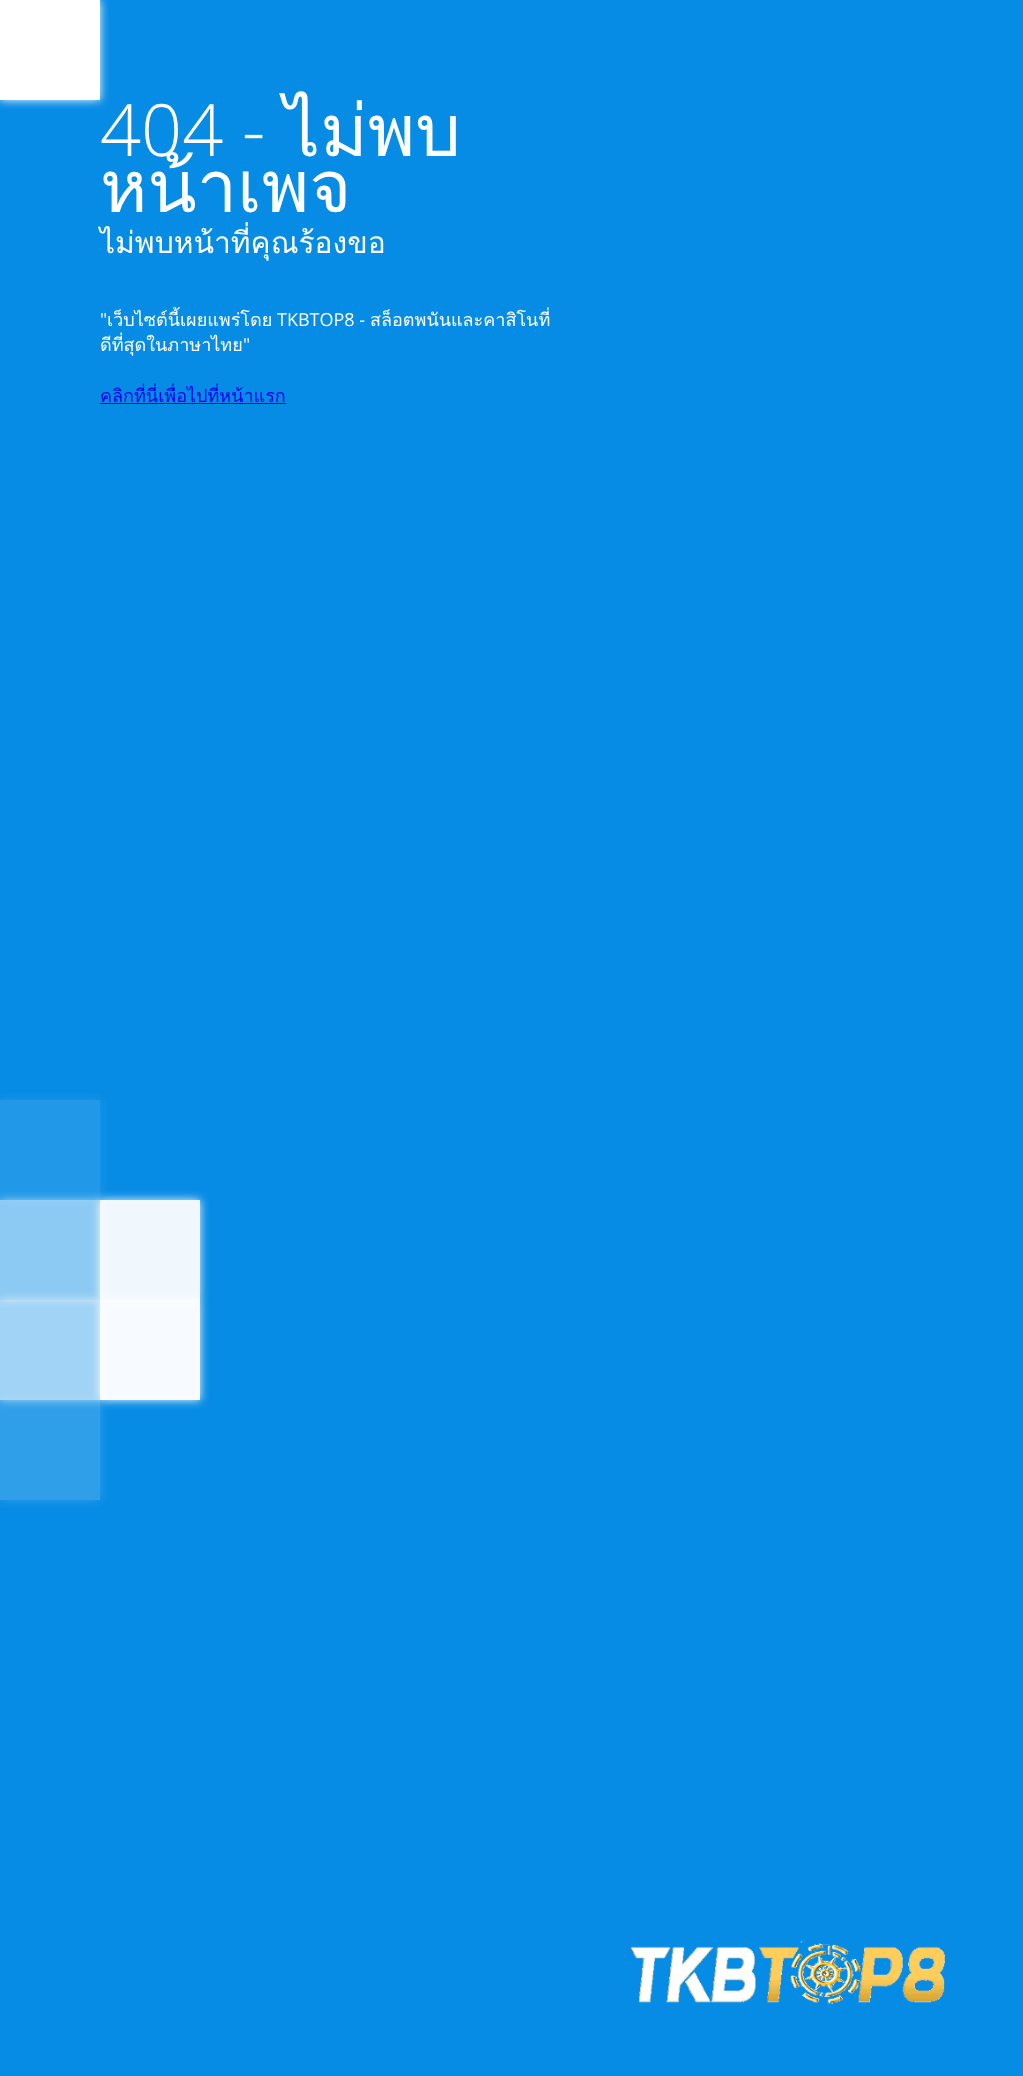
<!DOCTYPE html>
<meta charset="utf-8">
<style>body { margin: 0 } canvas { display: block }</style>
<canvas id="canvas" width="1023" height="2076"></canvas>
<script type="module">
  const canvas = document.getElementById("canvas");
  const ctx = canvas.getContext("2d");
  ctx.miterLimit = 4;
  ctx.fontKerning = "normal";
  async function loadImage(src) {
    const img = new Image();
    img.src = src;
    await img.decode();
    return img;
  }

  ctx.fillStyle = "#078ce5";
  ctx.fillRect(0, 0, 1023, 2076);
  ctx.fillStyle = "#ffffff";
  ctx.filter = "blur(5px)";
  ctx.beginPath();
  ctx.rect(0, 0, 100, 100);
  ctx.fill();
  ctx.filter = "none";
  ctx.fillRect(0, 0, 100, 100);
  ctx.font = "300 72px Open Sans";
  ctx.fillText("404 -", 100, 156);
  ctx.font = "72px Loma";
  ctx.fillText("ไม่พบ", 284, 156);
  ctx.fillText("หน้าเพจ", 100, 212);
  ctx.font = "30px Loma";
  ctx.fillText("ไม่พบหน้าที่คุณร้องขอ", 100, 253);
  ctx.font = "18px Open Sans";
  ctx.fillText("\"", 100, 326);
  ctx.font = "18px Loma";
  ctx.fillText("เว็บไซต์นี้เผยแพร่โดย", 107, 326);
  ctx.font = "18px Open Sans";
  ctx.fillText("TKBTOP8 -", 277, 326);
  ctx.font = "18px Loma";
  ctx.fillText("สล็อตพนันและคาสิโนที่", 370, 326);
  ctx.fillText("ดีที่สุดในภาษาไทย", 100, 351);
  ctx.font = "18px Open Sans";
  ctx.fillText("\"", 243, 351);
  ctx.font = "18px Loma";
  ctx.fillStyle = "#0000ee";
  ctx.fillText("คลิกที่นี่เพื่อไปที่หน้าแรก", 100, 402);
  ctx.fillRect(100, 403, 186, 1);
  ctx.drawImage(await loadImage("img1.png"), 630, 1941, 315, 63);
  ctx.fillStyle = "#2298e8";
  ctx.filter = "blur(5px)";
  ctx.beginPath();
  ctx.rect(0, 1100, 100, 100);
  ctx.fill();
  ctx.filter = "none";
  ctx.fillRect(0, 1100, 100, 100);
  ctx.save();
  ctx.beginPath();
  ctx.moveTo(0, 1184);
  ctx.lineTo(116, 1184);
  ctx.lineTo(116, 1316);
  ctx.lineTo(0, 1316);
  ctx.closePath();
  ctx.moveTo(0, 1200);
  ctx.lineTo(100, 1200);
  ctx.lineTo(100, 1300);
  ctx.lineTo(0, 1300);
  ctx.closePath();
  ctx.clip("evenodd");
  ctx.fillStyle = "rgba(255, 255, 255, 0.54)";
  ctx.filter = "blur(5px)";
  ctx.beginPath();
  ctx.rect(0, 1200, 100, 100);
  ctx.fill();
  ctx.filter = "none";
  ctx.restore();
  ctx.fillStyle = "rgba(255, 255, 255, 0.54)";
  ctx.fillRect(0, 1200, 100, 100);
  ctx.save();
  ctx.beginPath();
  ctx.moveTo(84, 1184);
  ctx.lineTo(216, 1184);
  ctx.lineTo(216, 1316);
  ctx.lineTo(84, 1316);
  ctx.closePath();
  ctx.moveTo(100, 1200);
  ctx.lineTo(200, 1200);
  ctx.lineTo(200, 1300);
  ctx.lineTo(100, 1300);
  ctx.closePath();
  ctx.clip("evenodd");
  ctx.fillStyle = "rgba(255, 255, 255, 0.94)";
  ctx.filter = "blur(5px)";
  ctx.beginPath();
  ctx.rect(100, 1200, 100, 100);
  ctx.fill();
  ctx.filter = "none";
  ctx.restore();
  ctx.fillStyle = "rgba(255, 255, 255, 0.94)";
  ctx.fillRect(100, 1200, 100, 100);
  ctx.save();
  ctx.beginPath();
  ctx.moveTo(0, 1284);
  ctx.lineTo(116, 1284);
  ctx.lineTo(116, 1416);
  ctx.lineTo(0, 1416);
  ctx.closePath();
  ctx.moveTo(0, 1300);
  ctx.lineTo(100, 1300);
  ctx.lineTo(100, 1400);
  ctx.lineTo(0, 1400);
  ctx.closePath();
  ctx.clip("evenodd");
  ctx.fillStyle = "rgba(255, 255, 255, 0.62)";
  ctx.filter = "blur(5px)";
  ctx.beginPath();
  ctx.rect(0, 1300, 100, 100);
  ctx.fill();
  ctx.filter = "none";
  ctx.restore();
  ctx.fillStyle = "rgba(255, 255, 255, 0.62)";
  ctx.fillRect(0, 1300, 100, 100);
  ctx.save();
  ctx.beginPath();
  ctx.moveTo(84, 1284);
  ctx.lineTo(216, 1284);
  ctx.lineTo(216, 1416);
  ctx.lineTo(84, 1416);
  ctx.closePath();
  ctx.moveTo(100, 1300);
  ctx.lineTo(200, 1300);
  ctx.lineTo(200, 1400);
  ctx.lineTo(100, 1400);
  ctx.closePath();
  ctx.clip("evenodd");
  ctx.fillStyle = "rgba(255, 255, 255, 0.97)";
  ctx.filter = "blur(5px)";
  ctx.beginPath();
  ctx.rect(100, 1300, 100, 100);
  ctx.fill();
  ctx.filter = "none";
  ctx.restore();
  ctx.fillStyle = "rgba(255, 255, 255, 0.97)";
  ctx.fillRect(100, 1300, 100, 100);
  ctx.save();
  ctx.beginPath();
  ctx.moveTo(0, 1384);
  ctx.lineTo(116, 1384);
  ctx.lineTo(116, 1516);
  ctx.lineTo(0, 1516);
  ctx.closePath();
  ctx.moveTo(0, 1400);
  ctx.lineTo(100, 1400);
  ctx.lineTo(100, 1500);
  ctx.lineTo(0, 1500);
  ctx.closePath();
  ctx.clip("evenodd");
  ctx.fillStyle = "rgba(255, 255, 255, 0.17)";
  ctx.filter = "blur(5px)";
  ctx.beginPath();
  ctx.rect(0, 1400, 100, 100);
  ctx.fill();
  ctx.filter = "none";
  ctx.restore();
  ctx.fillStyle = "rgba(255, 255, 255, 0.17)";
  ctx.fillRect(0, 1400, 100, 100);
</script>
